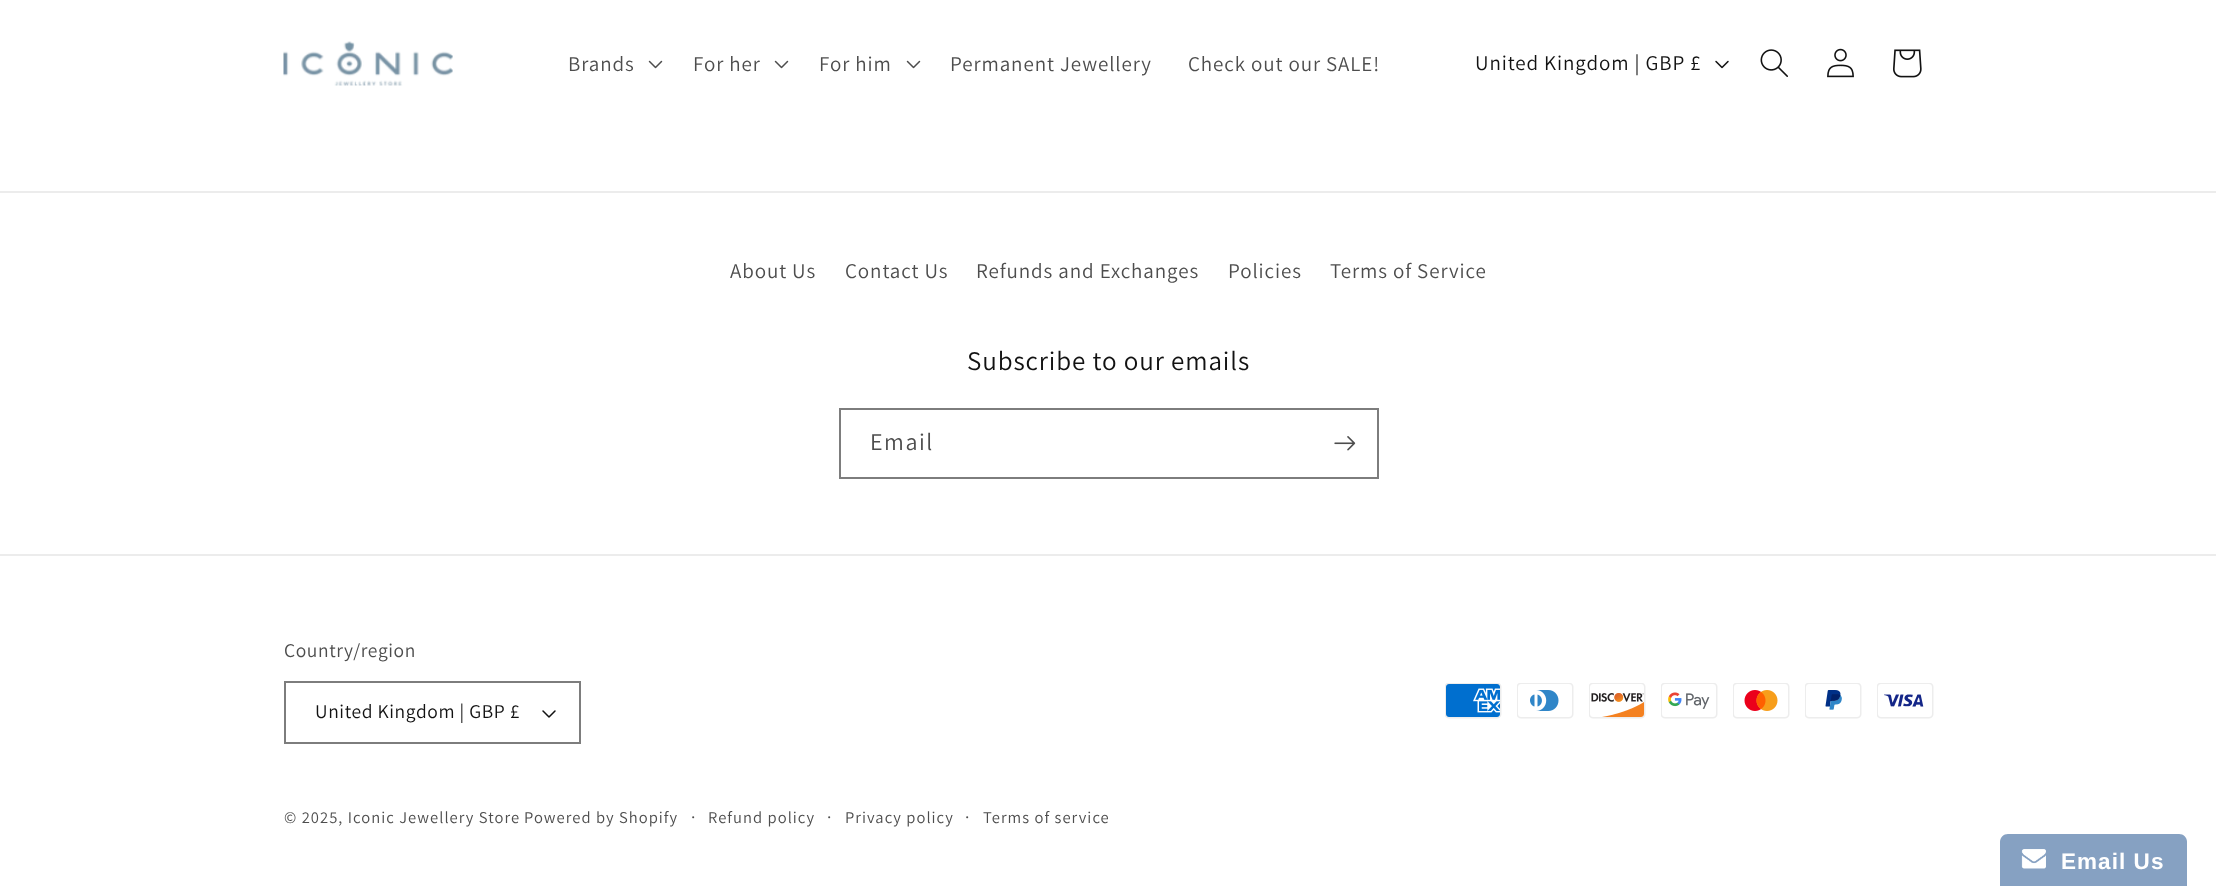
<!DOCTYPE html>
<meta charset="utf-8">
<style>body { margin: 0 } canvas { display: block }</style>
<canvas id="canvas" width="2216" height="886"></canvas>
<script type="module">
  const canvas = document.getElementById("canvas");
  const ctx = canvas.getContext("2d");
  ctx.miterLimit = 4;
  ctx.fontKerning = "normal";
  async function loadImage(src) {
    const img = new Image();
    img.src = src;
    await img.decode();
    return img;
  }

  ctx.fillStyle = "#ffffff";
  ctx.fillRect(0, 0, 2216, 886);
  ctx.drawImage(await loadImage("img1.png"), 283, 41, 170, 45);
  ctx.letterSpacing = "0.9px";
  ctx.font = "21px Assistant";
  ctx.fillStyle = "#4d4d4d";
  ctx.fillText("Brands", 568, 71);
  ctx.drawImage(await loadImage("img2.png"), 648, 60, 15, 9);
  ctx.fillText("For her", 693, 71);
  ctx.drawImage(await loadImage("img2.png"), 774, 60, 15, 9);
  ctx.fillText("For him", 819, 71);
  ctx.drawImage(await loadImage("img2.png"), 906, 60, 15, 9);
  ctx.fillText("Permanent Jewellery", 950, 71);
  ctx.fillText("Check out our SALE!", 1188, 71);
  ctx.fillStyle = "#121212";
  ctx.fillText("United Kingdom | GBP £", 1475, 70);
  ctx.drawImage(await loadImage("img3.png"), 1715, 60, 14, 9);
  ctx.drawImage(await loadImage("img4.png"), 1760, 49, 28, 28);
  ctx.drawImage(await loadImage("img5.png"), 1827, 48, 27, 30);
  ctx.drawImage(await loadImage("img6.png"), 1893, 49, 29, 29);
  ctx.fillStyle = "#ececec";
  ctx.fillRect(0, 191, 2216, 2);
  ctx.fillStyle = "#4d4d4d";
  ctx.fillText("About Us", 730, 278);
  ctx.fillText("Contact Us", 845, 278);
  ctx.fillText("Refunds and Exchanges", 976, 278);
  ctx.fillText("Policies", 1228, 278);
  ctx.fillText("Terms of Service", 1330, 278);
  ctx.font = "27px Assistant";
  ctx.fillStyle = "#121212";
  ctx.fillText("Subscribe to our emails", 967, 370);
  ctx.strokeStyle = "#7d7d7d";
  ctx.lineWidth = 2;
  ctx.strokeRect(840, 409, 538, 69);
  ctx.letterSpacing = "1.5px";
  ctx.font = "24px Assistant";
  ctx.fillStyle = "#4d4d4d";
  ctx.fillText("Email", 870, 450);
  ctx.drawImage(await loadImage("img7.png"), 1334, 436, 22, 15);
  ctx.fillStyle = "#ececec";
  ctx.fillRect(0, 554, 2216, 2);
  ctx.letterSpacing = "0.6px";
  ctx.font = "19.5px Assistant";
  ctx.fillStyle = "#4d4d4d";
  ctx.fillText("Country/region", 284, 657);
  ctx.drawImage(await loadImage("img8.png"), 542, 710, 14, 8);
  ctx.strokeRect(285, 682, 295, 61);
  ctx.fillStyle = "#121212";
  ctx.fillText("United Kingdom | GBP £", 315, 718);
  ctx.drawImage(await loadImage("img9.png"), 1445, 683, 57, 36);
  ctx.drawImage(await loadImage("img10.png"), 1517, 683, 57, 36);
  ctx.drawImage(await loadImage("img11.png"), 1589, 683, 57, 36);
  ctx.drawImage(await loadImage("img12.png"), 1661, 683, 57, 36);
  ctx.drawImage(await loadImage("img13.png"), 1733, 683, 57, 36);
  ctx.drawImage(await loadImage("img14.png"), 1805, 683, 57, 36);
  ctx.drawImage(await loadImage("img15.png"), 1877, 683, 57, 36);
  ctx.letterSpacing = "1.05px";
  ctx.font = "16.5px Assistant";
  ctx.fillStyle = "#4d4d4d";
  ctx.fillText("© 2025, Iconic Jewellery Store", 284, 823);
  ctx.fillText("Powered by Shopify", 524, 823);
  ctx.font = "18px Assistant";
  ctx.fillText("·", 691, 823);
  ctx.font = "16.5px Assistant";
  ctx.fillText("Refund policy", 708, 823);
  ctx.font = "18px Assistant";
  ctx.fillText("·", 827, 823);
  ctx.font = "16.5px Assistant";
  ctx.fillText("Privacy policy", 845, 823);
  ctx.font = "18px Assistant";
  ctx.fillText("·", 965, 823);
  ctx.font = "16.5px Assistant";
  ctx.fillText("Terms of service", 983, 823);
  ctx.fillStyle = "#86a1c2";
  ctx.beginPath();
  ctx.moveTo(2008, 834);
  ctx.lineTo(2179, 834);
  ctx.bezierCurveTo(2183.5, 834, 2187, 837.5, 2187, 842);
  ctx.lineTo(2187, 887);
  ctx.lineTo(2000, 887);
  ctx.lineTo(2000, 842);
  ctx.bezierCurveTo(2000, 837.5, 2003.5, 834, 2008, 834);
  ctx.closePath();
  ctx.fill();
  ctx.drawImage(await loadImage("img16.png"), 2021, 849, 25, 20);
  ctx.font = "bold 22.5px Liberation Sans";
  ctx.fillStyle = "#ffffff";
  ctx.fillText("Email Us", 2061, 869);
</script>
